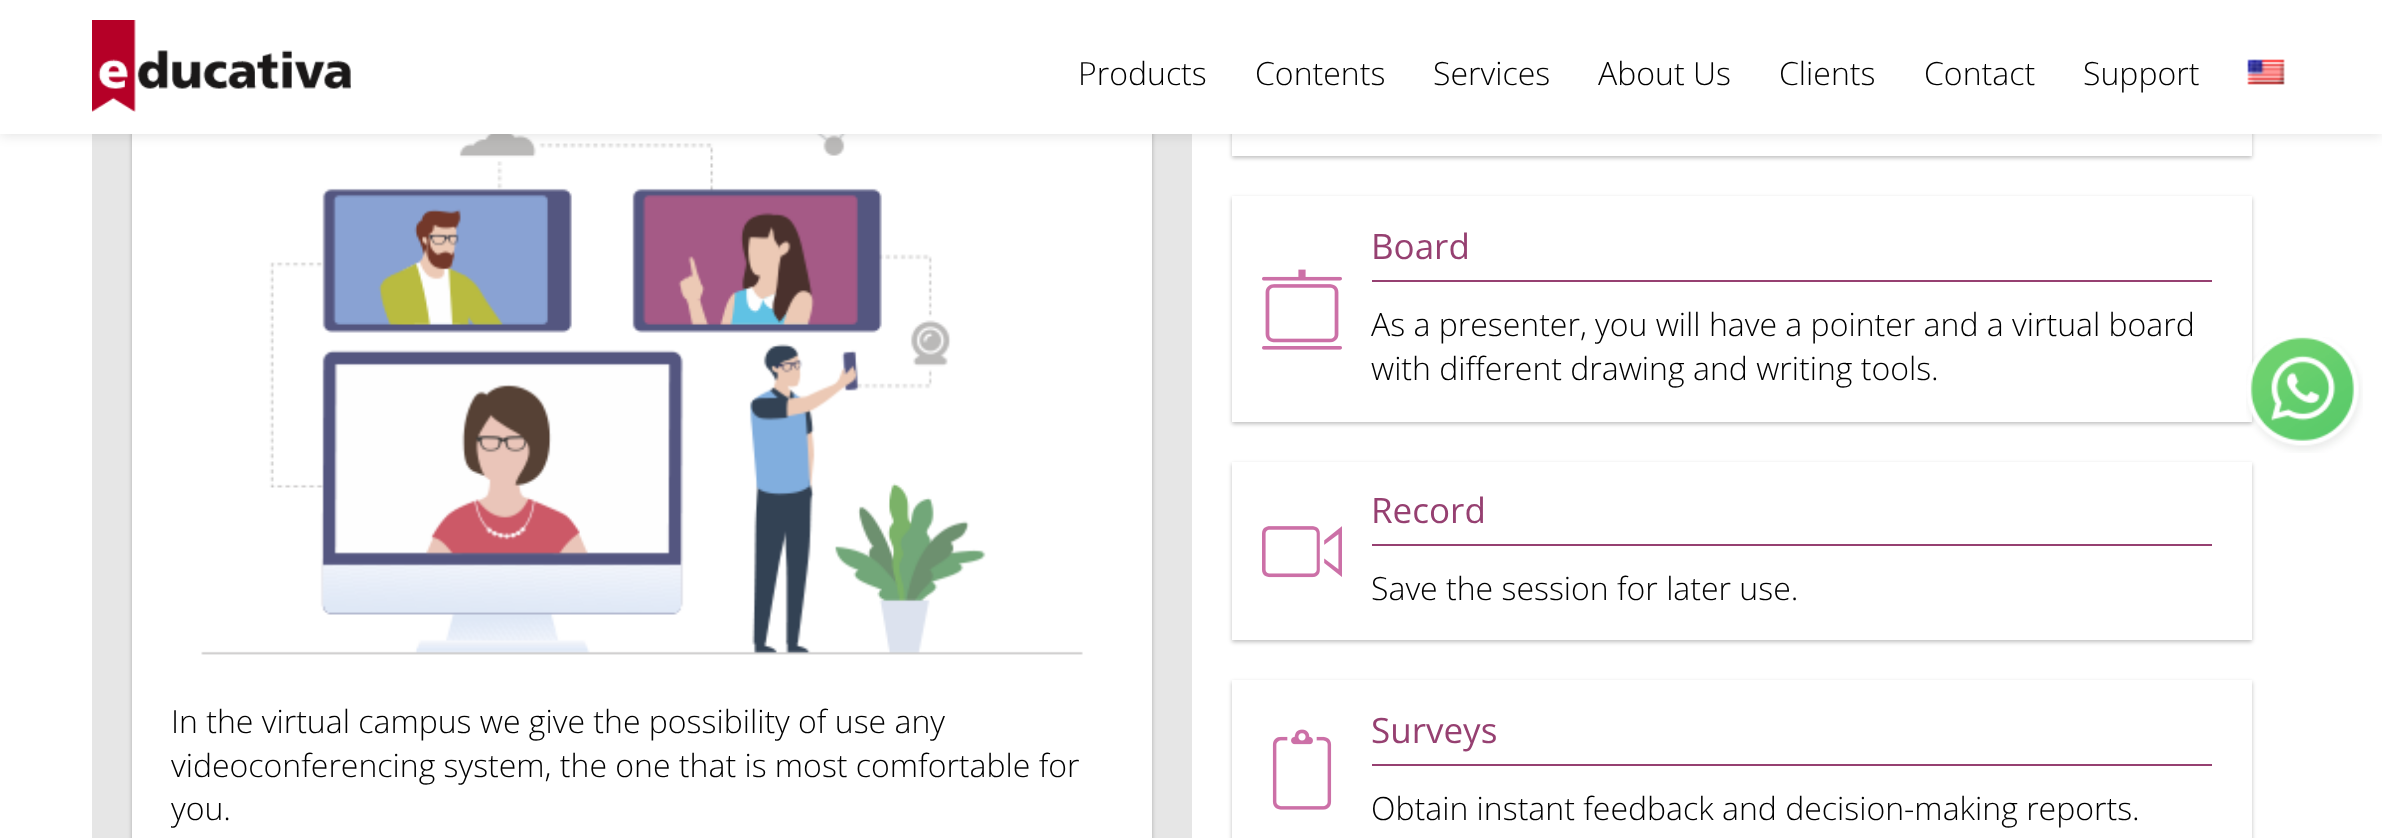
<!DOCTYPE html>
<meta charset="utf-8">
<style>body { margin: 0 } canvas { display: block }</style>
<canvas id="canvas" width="2382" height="838"></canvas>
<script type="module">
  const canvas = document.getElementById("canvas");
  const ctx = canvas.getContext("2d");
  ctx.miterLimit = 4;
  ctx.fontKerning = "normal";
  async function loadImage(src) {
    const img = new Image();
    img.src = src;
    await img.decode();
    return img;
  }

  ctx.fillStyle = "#ffffff";
  ctx.fillRect(0, 0, 2382, 838);
  ctx.fillStyle = "#e6e6e6";
  ctx.fillRect(92, 134, 1100, 704);
  ctx.fillStyle = "rgba(0, 0, 0, 0.25)";
  ctx.filter = "blur(2px)";
  ctx.beginPath();
  ctx.rect(132, -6, 1020, 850);
  ctx.fill();
  ctx.filter = "none";
  ctx.fillStyle = "#ffffff";
  ctx.fillRect(132, 134, 1020, 704);
  ctx.drawImage(await loadImage("img3.png"), 201, 134, 882, 521);
  ctx.fillStyle = "rgba(0, 0, 0, 0.1)";
  ctx.filter = "blur(6px)";
  ctx.beginPath();
  ctx.rect(0, 2, 2382, 134);
  ctx.fill();
  ctx.filter = "none";
  ctx.save();
  ctx.beginPath();
  ctx.moveTo(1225, 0);
  ctx.lineTo(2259, 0);
  ctx.lineTo(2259, 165);
  ctx.lineTo(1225, 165);
  ctx.closePath();
  ctx.moveTo(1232, -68);
  ctx.lineTo(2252, -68);
  ctx.lineTo(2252, 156);
  ctx.lineTo(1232, 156);
  ctx.closePath();
  ctx.clip("evenodd");
  ctx.fillStyle = "rgba(0, 0, 0, 0.25)";
  ctx.filter = "blur(2px)";
  ctx.beginPath();
  ctx.rect(1232, -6, 1020, 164);
  ctx.fill();
  ctx.filter = "none";
  ctx.restore();
  ctx.fillStyle = "#ffffff";
  ctx.fillRect(0, 0, 2382, 134);
  ctx.drawImage(await loadImage("img1.png"), 92, 20, 259, 92);
  ctx.font = "300 32px Open Sans";
  ctx.fillStyle = "#000000";
  ctx.fillText("Products", 1078, 85);
  ctx.fillText("Contents", 1255, 85);
  ctx.fillText("Services", 1433, 85);
  ctx.fillText("About Us", 1598, 85);
  ctx.fillText("Clients", 1779, 85);
  ctx.fillText("Contact", 1924, 85);
  ctx.fillText("Support", 2083, 85);
  ctx.drawImage(await loadImage("img2.png"), 2247, 59, 38, 26);
  ctx.fillText("In the virtual campus we give the possibility of use any", 171, 733);
  ctx.fillText("videoconferencing system, the one that is most comfortable for", 171, 777);
  ctx.fillText("you.", 171, 820);
  ctx.save();
  ctx.beginPath();
  ctx.moveTo(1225, 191);
  ctx.lineTo(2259, 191);
  ctx.lineTo(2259, 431);
  ctx.lineTo(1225, 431);
  ctx.closePath();
  ctx.moveTo(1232, 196);
  ctx.lineTo(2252, 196);
  ctx.lineTo(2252, 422);
  ctx.lineTo(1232, 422);
  ctx.closePath();
  ctx.clip("evenodd");
  ctx.fillStyle = "rgba(0, 0, 0, 0.25)";
  ctx.filter = "blur(2px)";
  ctx.beginPath();
  ctx.rect(1232, 198, 1020, 226);
  ctx.fill();
  ctx.filter = "none";
  ctx.restore();
  ctx.fillStyle = "#964071";
  ctx.fillRect(1372, 280, 840, 2);
  ctx.font = "35px Open Sans";
  ctx.fillText("Board", 1371, 259);
  ctx.drawImage(await loadImage("img4.png"), 1262, 269, 80, 81);
  ctx.font = "300 32px Open Sans";
  ctx.fillStyle = "#000000";
  ctx.fillText("As a presenter, you will have a pointer and a virtual board", 1371, 336);
  ctx.fillText("with different drawing and writing tools.", 1371, 380);
  ctx.save();
  ctx.beginPath();
  ctx.moveTo(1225, 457);
  ctx.lineTo(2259, 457);
  ctx.lineTo(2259, 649);
  ctx.lineTo(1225, 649);
  ctx.closePath();
  ctx.moveTo(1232, 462);
  ctx.lineTo(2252, 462);
  ctx.lineTo(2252, 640);
  ctx.lineTo(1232, 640);
  ctx.closePath();
  ctx.clip("evenodd");
  ctx.fillStyle = "rgba(0, 0, 0, 0.25)";
  ctx.filter = "blur(2px)";
  ctx.beginPath();
  ctx.rect(1232, 464, 1020, 178);
  ctx.fill();
  ctx.filter = "none";
  ctx.restore();
  ctx.fillStyle = "#964071";
  ctx.fillRect(1372, 544, 840, 2);
  ctx.font = "35px Open Sans";
  ctx.fillText("Record", 1371, 523);
  ctx.drawImage(await loadImage("img5.png"), 1262, 526, 80, 52);
  ctx.font = "300 32px Open Sans";
  ctx.fillStyle = "#000000";
  ctx.fillText("Save the session for later use.", 1371, 600);
  ctx.save();
  ctx.beginPath();
  ctx.moveTo(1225, 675);
  ctx.lineTo(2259, 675);
  ctx.lineTo(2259, 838);
  ctx.lineTo(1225, 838);
  ctx.closePath();
  ctx.moveTo(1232, 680);
  ctx.lineTo(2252, 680);
  ctx.lineTo(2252, 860);
  ctx.lineTo(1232, 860);
  ctx.closePath();
  ctx.clip("evenodd");
  ctx.fillStyle = "rgba(0, 0, 0, 0.25)";
  ctx.filter = "blur(2px)";
  ctx.beginPath();
  ctx.rect(1232, 682, 1020, 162);
  ctx.fill();
  ctx.filter = "none";
  ctx.restore();
  ctx.drawImage(await loadImage("img6.png"), 1272, 729, 60, 81);
  ctx.fillStyle = "#964071";
  ctx.fillRect(1372, 764, 840, 2);
  ctx.font = "35px Open Sans";
  ctx.fillText("Surveys", 1371, 743);
  ctx.font = "300 32px Open Sans";
  ctx.fillStyle = "#000000";
  ctx.fillText("Obtain instant feedback and decision-making reports.", 1371, 820);
  ctx.drawImage(await loadImage("img7.png"), 2246, 337, 117, 116);
</script>
